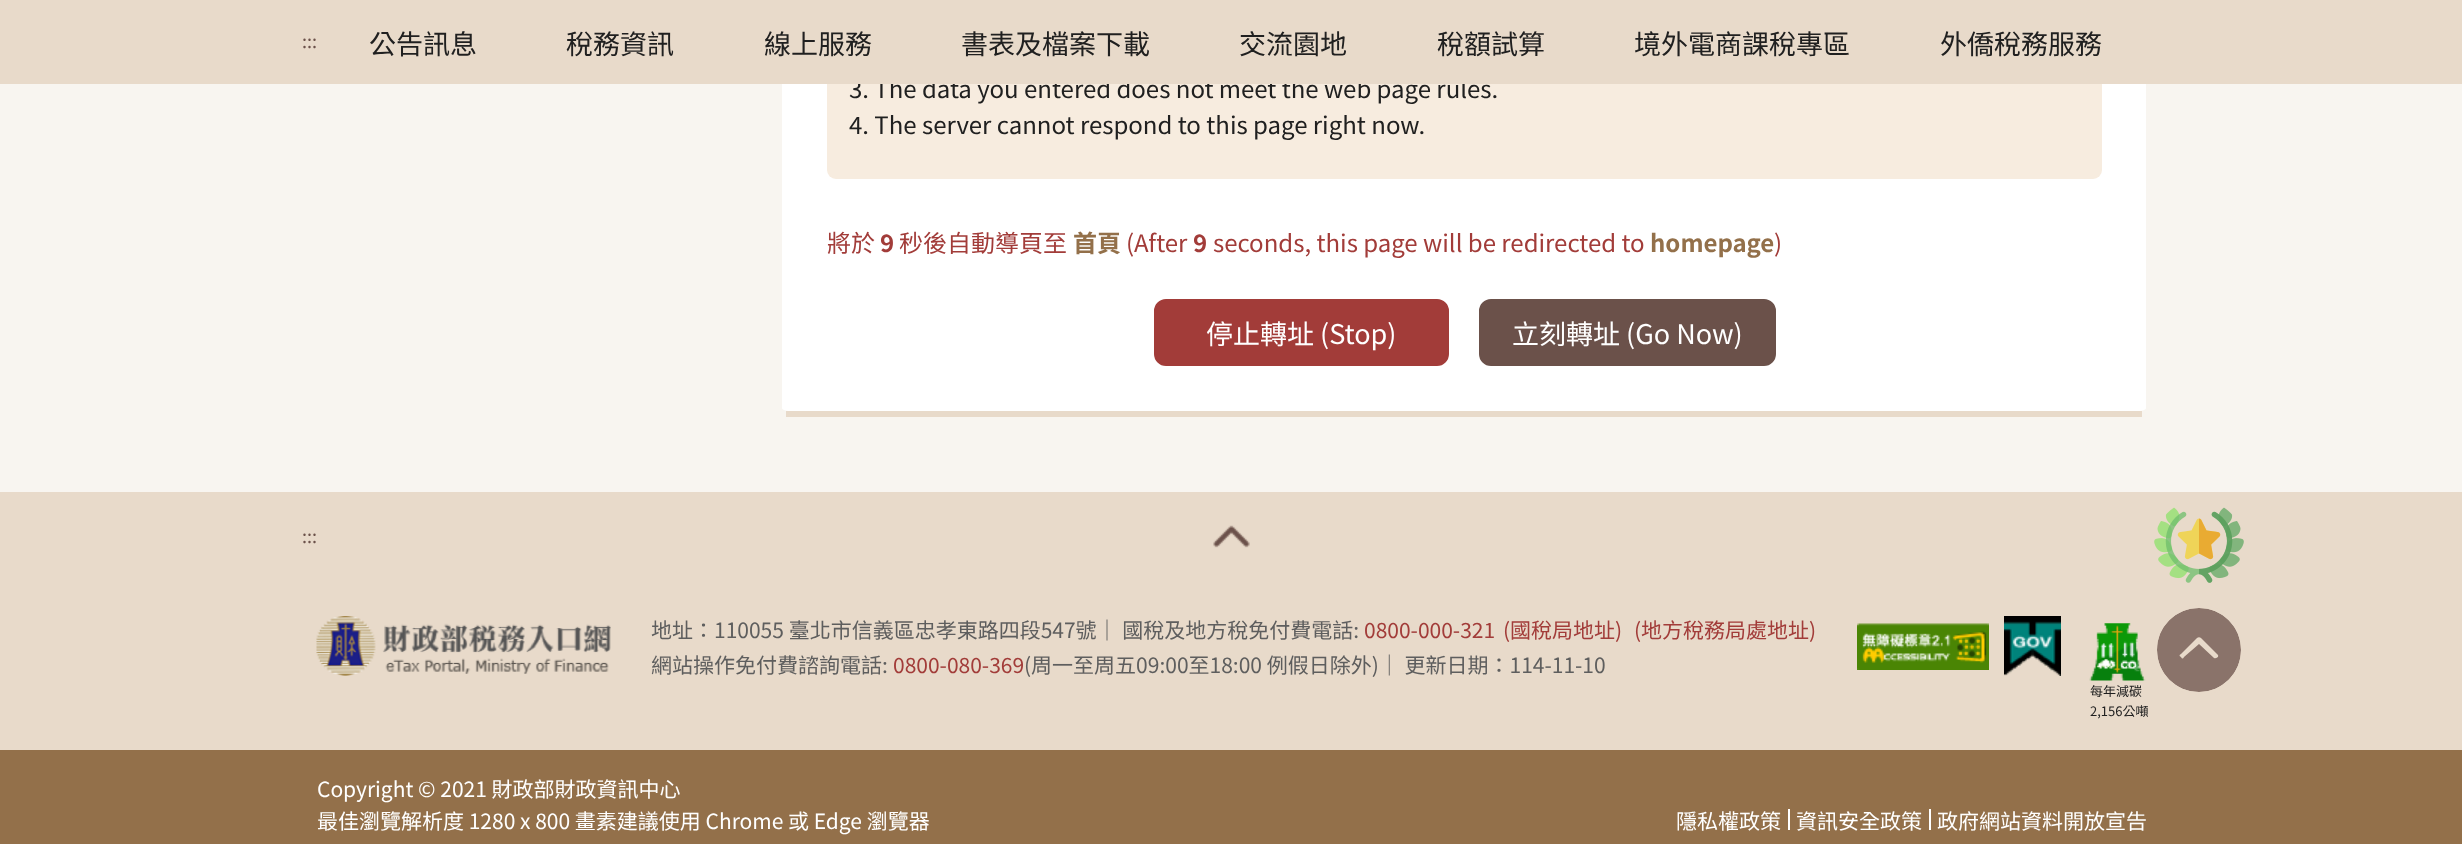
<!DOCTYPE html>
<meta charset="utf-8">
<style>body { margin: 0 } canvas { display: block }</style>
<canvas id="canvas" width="2462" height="844"></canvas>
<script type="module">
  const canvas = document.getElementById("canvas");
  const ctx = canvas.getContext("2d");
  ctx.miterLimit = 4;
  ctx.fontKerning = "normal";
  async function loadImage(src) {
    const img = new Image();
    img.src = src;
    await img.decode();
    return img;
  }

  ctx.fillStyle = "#f8f5f0";
  ctx.fillRect(0, 0, 2462, 844);
  ctx.fillStyle = "#ffffff";
  ctx.beginPath();
  ctx.moveTo(790, -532);
  ctx.lineTo(2138, -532);
  ctx.bezierCurveTo(2142, -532, 2146, -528, 2146, -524);
  ctx.lineTo(2146, 408);
  ctx.bezierCurveTo(2146, 410, 2142, 411, 2138, 411);
  ctx.lineTo(790, 411);
  ctx.bezierCurveTo(786, 411, 782, 410, 782, 408);
  ctx.lineTo(782, -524);
  ctx.bezierCurveTo(782, -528, 786, -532, 790, -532);
  ctx.closePath();
  ctx.fill();
  ctx.fillStyle = "#f7ecdf";
  ctx.beginPath();
  ctx.roundRect(827, -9, 1275, 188, 9);
  ctx.fill();
  ctx.font = "24px Noto Sans TC";
  ctx.fillStyle = "#202020";
  ctx.fillText("3. The data you entered does not meet the web page rules.", 849, 98);
  ctx.fillStyle = "#e8daca";
  ctx.fillRect(0, 0, 2462, 84);
  ctx.font = "18px Noto Sans TC";
  ctx.fillStyle = "#6b514a";
  ctx.fillText(":::", 302, 48);
  ctx.font = "27px Noto Sans TC";
  ctx.fillStyle = "#202020";
  ctx.fillText("公告訊息", 369, 54);
  ctx.fillText("稅務資訊", 566, 54);
  ctx.fillText("線上服務", 764, 54);
  ctx.fillText("書表及檔案下載", 961, 54);
  ctx.fillText("交流園地", 1239, 54);
  ctx.fillText("稅額試算", 1437, 54);
  ctx.fillText("境外電商課稅專區", 1634, 54);
  ctx.fillText("外僑稅務服務", 1940, 54);
  ctx.fillStyle = "#e8daca";
  ctx.fillRect(786, 411, 1356, 6);
  ctx.font = "24px Noto Sans TC";
  ctx.fillStyle = "#202020";
  ctx.fillText("4. The server cannot respond to this page right now.", 849, 134);
  ctx.fillStyle = "#a23c39";
  ctx.fillText("將於", 827, 252);
  ctx.font = "bold 24px Noto Sans TC";
  ctx.fillText("9", 880, 252);
  ctx.font = "24px Noto Sans TC";
  ctx.fillText("秒後自動導頁至", 899, 252);
  ctx.font = "bold 24px Noto Sans TC";
  ctx.fillStyle = "#93704a";
  ctx.fillText("首頁", 1073, 252);
  ctx.font = "24px Noto Sans TC";
  ctx.fillStyle = "#a23c39";
  ctx.fillText("(After", 1126, 252);
  ctx.font = "bold 24px Noto Sans TC";
  ctx.fillText("9", 1193, 252);
  ctx.font = "24px Noto Sans TC";
  ctx.fillText("seconds, this page will be redirected to", 1213, 252);
  ctx.font = "bold 24px Noto Sans TC";
  ctx.fillStyle = "#93704a";
  ctx.fillText("homepage", 1650, 252);
  ctx.font = "24px Noto Sans TC";
  ctx.fillStyle = "#a23c39";
  ctx.fillText(")", 1774, 252);
  ctx.beginPath();
  ctx.roundRect(1155, 300, 293, 65, 11);
  ctx.fill();
  ctx.strokeStyle = "#a23c39";
  ctx.lineWidth = 2;
  ctx.stroke();
  ctx.font = "27px Noto Sans TC";
  ctx.fillStyle = "#ffffff";
  ctx.fillText("停止轉址 (Stop)", 1206, 344);
  ctx.fillStyle = "#6b514a";
  ctx.beginPath();
  ctx.roundRect(1480, 300, 295, 65, 11);
  ctx.fill();
  ctx.strokeStyle = "#6b514a";
  ctx.stroke();
  ctx.fillStyle = "#ffffff";
  ctx.fillText("立刻轉址 (Go Now)", 1512, 344);
  ctx.fillStyle = "#e8daca";
  ctx.fillRect(0, 492, 2462, 258);
  ctx.font = "18px Noto Sans TC";
  ctx.fillStyle = "#6b514a";
  ctx.fillText(":::", 302, 543);
  ctx.drawImage(await loadImage("img1.png"), 1213, 525, 37, 23);
  ctx.drawImage(await loadImage("img2.png"), 316, 616, 295, 60);
  ctx.font = "21px Noto Sans TC";
  ctx.fillStyle = "#5e5e5e";
  ctx.fillText("地址：110055 臺北市信義區忠孝東路四段547號｜ 國稅及地方稅免付費電話:", 651, 638);
  ctx.fillStyle = "#a23c39";
  ctx.fillText("0800-000-321", 1364, 638);
  ctx.fillText("(國稅局地址)", 1503, 638);
  ctx.fillText("(地方稅務局處地址)", 1634, 638);
  ctx.fillStyle = "#5e5e5e";
  ctx.fillText("網站操作免付費諮詢電話:", 651, 673);
  ctx.fillStyle = "#a23c39";
  ctx.fillText("0800-080-369", 893, 673);
  ctx.fillStyle = "#5e5e5e";
  ctx.fillText("(周一至周五09:00至18:00 例假日除外)｜ 更新日期：114-11-10", 1024, 673);
  ctx.drawImage(await loadImage("img3.png"), 1857, 623, 132, 47);
  ctx.drawImage(await loadImage("img4.png"), 2004, 616, 57, 60);
  ctx.drawImage(await loadImage("img5.png"), 2089, 623, 57, 58);
  ctx.font = "13px Noto Sans TC";
  ctx.fillStyle = "#202020";
  ctx.fillText("每年減碳", 2090, 696);
  ctx.fillText("2,156公噸", 2090, 716);
  ctx.fillStyle = "#93704a";
  ctx.fillRect(0, 750, 2462, 94);
  ctx.font = "21px Noto Sans TC";
  ctx.fillStyle = "#ffffff";
  ctx.fillText("Copyright © 2021 財政部財政資訊中心", 317, 797);
  ctx.fillText("最佳瀏覽解析度 1280 x 800 畫素建議使用 Chrome 或 Edge 瀏覽器", 317, 829);
  ctx.fillText("隱私權政策", 1676, 829);
  ctx.fillRect(1788, 809, 2, 21);
  ctx.fillText("資訊安全政策", 1796, 829);
  ctx.fillRect(1929, 809, 2, 21);
  ctx.fillText("政府網站資料開放宣告", 1937, 829);
  ctx.drawImage(await loadImage("img6.png"), 2154, 507, 90, 76);
  ctx.fillStyle = "#8a736a";
  ctx.beginPath();
  ctx.moveTo(2199, 608);
  ctx.bezierCurveTo(2222, 608, 2241, 626, 2241, 650);
  ctx.bezierCurveTo(2241, 673, 2222, 692, 2199, 692);
  ctx.bezierCurveTo(2176, 692, 2157, 673, 2157, 650);
  ctx.bezierCurveTo(2157, 626, 2176, 608, 2199, 608);
  ctx.closePath();
  ctx.moveTo(2201, 638);
  ctx.bezierCurveTo(2200, 637, 2198, 637, 2197, 638);
  ctx.lineTo(2181, 654);
  ctx.bezierCurveTo(2179, 655, 2179, 656, 2181, 657);
  ctx.bezierCurveTo(2182, 659, 2183, 659, 2184, 657);
  ctx.lineTo(2199, 644);
  ctx.lineTo(2214, 658);
  ctx.bezierCurveTo(2217, 659, 2220, 656, 2217, 654);
  ctx.closePath();
  ctx.fill();
  ctx.beginPath();
  ctx.arc(2199, 650, 43.5, 0, Math.PI * 2);
  ctx.strokeStyle = "#e8daca";
  ctx.lineWidth = 3;
  ctx.stroke();
</script>
